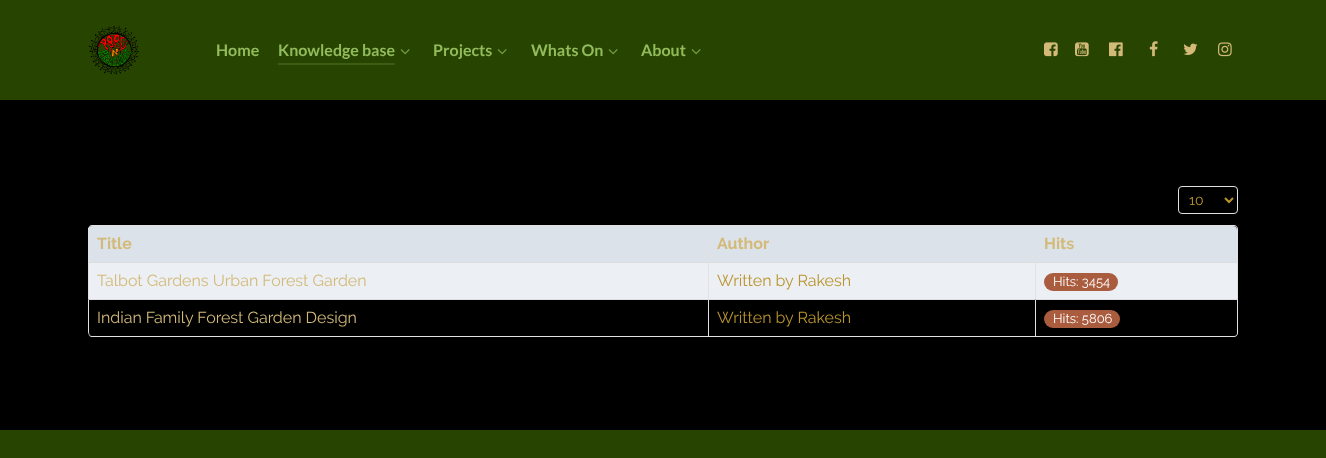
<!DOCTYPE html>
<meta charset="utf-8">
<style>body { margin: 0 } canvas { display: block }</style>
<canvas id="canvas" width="1326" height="458"></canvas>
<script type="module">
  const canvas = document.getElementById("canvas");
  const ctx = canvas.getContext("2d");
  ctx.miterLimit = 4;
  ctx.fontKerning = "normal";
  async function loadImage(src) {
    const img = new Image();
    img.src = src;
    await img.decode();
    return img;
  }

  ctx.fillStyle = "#000000";
  ctx.fillRect(0, 0, 1326, 458);
  ctx.fillStyle = "#274500";
  ctx.fillRect(0, 0, 1326, 100);
  ctx.drawImage(await loadImage("img1.png"), 88, 26, 51, 49);
  ctx.font = "bold 16px Lato";
  ctx.fillStyle = "#92bc5c";
  ctx.fillText("Home", 216, 56);
  ctx.fillStyle = "#3c5d12";
  ctx.fillRect(278, 63, 117, 2);
  ctx.fillStyle = "#92bc5c";
  ctx.fillText("Knowledge base", 278, 56);
  ctx.drawImage(await loadImage("img2.png"), 400, 49, 10, 6);
  ctx.fillText("Projects", 433, 56);
  ctx.drawImage(await loadImage("img2.png"), 497, 49, 10, 6);
  ctx.fillText("Whats On", 531, 56);
  ctx.drawImage(await loadImage("img2.png"), 608, 49, 10, 6);
  ctx.fillText("About", 641, 56);
  ctx.drawImage(await loadImage("img2.png"), 691, 49, 10, 6);
  ctx.drawImage(await loadImage("img3.png"), 1044, 42, 14, 15);
  ctx.drawImage(await loadImage("img4.png"), 1075, 42, 14, 15);
  ctx.drawImage(await loadImage("img5.png"), 1109, 42, 14, 15);
  ctx.drawImage(await loadImage("img6.png"), 1149, 41, 9, 16);
  ctx.drawImage(await loadImage("img7.png"), 1183, 43, 15, 12);
  ctx.drawImage(await loadImage("img8.png"), 1218, 42, 14, 15);
  ctx.beginPath();
  ctx.roundRect(1178.5, 186.5, 59, 27, 3.5);
  ctx.strokeStyle = "#e0e0e5";
  ctx.stroke();
  ctx.beginPath();
  ctx.moveTo(1225, 198);
  ctx.lineTo(1229, 202);
  ctx.lineTo(1233, 198);
  ctx.strokeStyle = "#ba942c";
  ctx.lineWidth = 2;
  ctx.stroke();
  ctx.font = "14px Raleway";
  ctx.fillStyle = "#ba942c";
  ctx.fillText("10", 1189, 205);
  ctx.fillStyle = "#e0e0e5";
  ctx.beginPath();
  ctx.moveTo(92, 225);
  ctx.lineTo(1234, 225);
  ctx.bezierCurveTo(1236, 225, 1238, 227, 1238, 229);
  ctx.lineTo(1238, 333);
  ctx.bezierCurveTo(1238, 335, 1236, 337, 1234, 337);
  ctx.lineTo(92, 337);
  ctx.bezierCurveTo(90, 337, 88, 335, 88, 333);
  ctx.lineTo(88, 229);
  ctx.bezierCurveTo(88, 227, 90, 225, 92, 225);
  ctx.closePath();
  ctx.moveTo(92, 226);
  ctx.lineTo(1234, 226);
  ctx.bezierCurveTo(1236, 226, 1237, 227, 1237, 229);
  ctx.lineTo(1237, 333);
  ctx.bezierCurveTo(1237, 335, 1236, 336, 1234, 336);
  ctx.lineTo(92, 336);
  ctx.bezierCurveTo(90, 336, 88, 335, 88, 333);
  ctx.lineTo(88, 229);
  ctx.bezierCurveTo(88, 227, 90, 226, 92, 226);
  ctx.closePath();
  ctx.fill("evenodd");
  ctx.fillStyle = "#dce2e9";
  ctx.beginPath();
  ctx.roundRect(88, 226, 620, 36, [4, 0, 0, 0]);
  ctx.fill();
  ctx.fillStyle = "#e0e0e5";
  ctx.fillRect(88, 228, 1, 34);
  ctx.font = "bold 16px Raleway";
  ctx.fillStyle = "#d3ba78";
  ctx.fillText("Title", 97, 249);
  ctx.fillStyle = "#dce2e9";
  ctx.fillRect(709, 226, 326, 36);
  ctx.fillStyle = "#e0e0e5";
  ctx.fillRect(708, 226, 1, 36);
  ctx.fillStyle = "#d3ba78";
  ctx.fillText("Author", 717, 249);
  ctx.fillStyle = "#dce2e9";
  ctx.beginPath();
  ctx.roundRect(1035, 226, 202, 36, [0, 4, 0, 0]);
  ctx.fill();
  ctx.fillStyle = "#e0e0e5";
  ctx.fillRect(1035, 226, 1, 36);
  ctx.fillStyle = "#d3ba78";
  ctx.fillText("Hits", 1044, 249);
  ctx.fillStyle = "#eceff3";
  ctx.fillRect(89, 263, 619, 36);
  ctx.fillStyle = "#dddddd";
  ctx.fillRect(88, 262, 1149, 1);
  ctx.fillStyle = "#e0e0e5";
  ctx.fillRect(88, 262, 1, 37);
  ctx.font = "16px Raleway";
  ctx.fillStyle = "#d3ba78";
  ctx.fillText("Talbot Gardens Urban Forest Garden", 97, 286);
  ctx.fillStyle = "#eceff3";
  ctx.fillRect(709, 263, 326, 36);
  ctx.fillStyle = "#e0e0e5";
  ctx.fillRect(708, 262, 1, 37);
  ctx.fillStyle = "#ba942c";
  ctx.fillText("Written by Rakesh", 717, 286);
  ctx.fillStyle = "#eceff3";
  ctx.fillRect(1036, 263, 201, 36);
  ctx.fillStyle = "#e0e0e5";
  ctx.fillRect(1035, 262, 1, 37);
  ctx.fillStyle = "#aa5c3e";
  ctx.beginPath();
  ctx.roundRect(1044, 273, 74, 18, 9);
  ctx.fill();
  ctx.font = "13px Raleway";
  ctx.fillStyle = "#ffffff";
  ctx.fillText("Hits: 3454", 1053, 286);
  ctx.fillStyle = "#dddddd";
  ctx.beginPath();
  ctx.moveTo(88, 299);
  ctx.lineTo(89, 300);
  ctx.lineTo(708, 300);
  ctx.lineTo(708, 299);
  ctx.closePath();
  ctx.fill();
  ctx.fillStyle = "#e0e0e5";
  ctx.beginPath();
  ctx.moveTo(89, 300);
  ctx.lineTo(88, 299);
  ctx.lineTo(88, 332);
  ctx.bezierCurveTo(88, 334, 90, 336, 92, 336);
  ctx.bezierCurveTo(90, 336, 89, 334, 89, 332);
  ctx.closePath();
  ctx.fill();
  ctx.font = "16px Raleway";
  ctx.fillStyle = "#d3ba78";
  ctx.fillText("Indian Family Forest Garden Design", 97, 323);
  ctx.fillStyle = "#dddddd";
  ctx.fillRect(708, 299, 327, 1);
  ctx.fillStyle = "#e0e0e5";
  ctx.fillRect(708, 299, 1, 37);
  ctx.fillStyle = "#ba942c";
  ctx.fillText("Written by Rakesh", 717, 323);
  ctx.fillStyle = "#dddddd";
  ctx.beginPath();
  ctx.moveTo(1035, 299);
  ctx.lineTo(1237, 299);
  ctx.lineTo(1237, 300);
  ctx.lineTo(1036, 300);
  ctx.closePath();
  ctx.fill();
  ctx.fillStyle = "#e0e0e5";
  ctx.beginPath();
  ctx.moveTo(1035, 299);
  ctx.lineTo(1035, 336);
  ctx.lineTo(1036, 336);
  ctx.lineTo(1036, 300);
  ctx.closePath();
  ctx.fill();
  ctx.fillStyle = "#aa5c3e";
  ctx.beginPath();
  ctx.roundRect(1044, 310, 76, 18, 9);
  ctx.fill();
  ctx.font = "13px Raleway";
  ctx.fillStyle = "#ffffff";
  ctx.fillText("Hits: 5806", 1053, 323);
  ctx.fillStyle = "#274500";
  ctx.fillRect(0, 430, 1326, 28);
</script>
